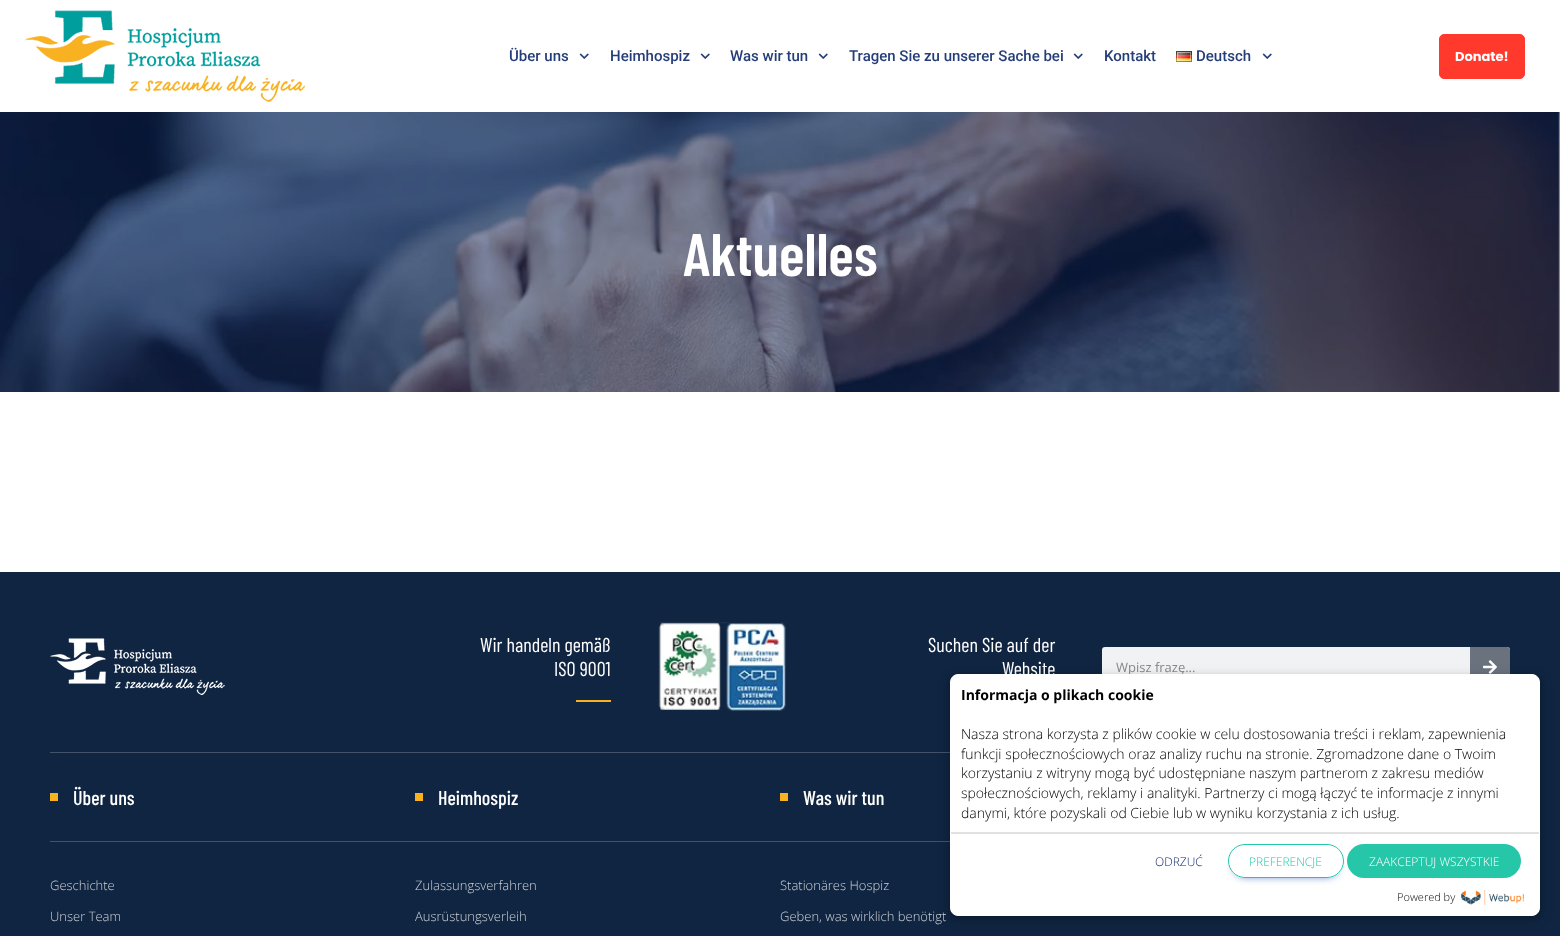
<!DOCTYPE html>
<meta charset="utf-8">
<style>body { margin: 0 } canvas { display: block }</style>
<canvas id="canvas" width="1560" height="936"></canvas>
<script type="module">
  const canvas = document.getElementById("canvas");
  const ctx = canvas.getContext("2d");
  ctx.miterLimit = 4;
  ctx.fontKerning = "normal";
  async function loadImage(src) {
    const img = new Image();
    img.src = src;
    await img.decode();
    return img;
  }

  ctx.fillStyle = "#ffffff";
  ctx.fillRect(0, 0, 1560, 936);
  ctx.fillStyle = "#8694b4";
  ctx.fillRect(1558, 112, 2, 280);
  ctx.save();
  ctx.beginPath();
  ctx.rect(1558, 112, 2, 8);
  ctx.clip();
  ctx.fillStyle = "rgba(7, 20, 52, 0.5)";
  ctx.filter = "blur(5px)";
  ctx.beginPath();
  ctx.rect(0, 0, 1560, 112);
  ctx.fill();
  ctx.filter = "none";
  ctx.restore();
  ctx.drawImage(await loadImage("img1.png"), 25, 10, 280, 92);
  ctx.font = "500 15px Roboto";
  ctx.fillStyle = "#253e79";
  ctx.fillText("Über uns", 509, 61);
  ctx.drawImage(await loadImage("img2.png"), 579, 53, 10, 6);
  ctx.fillText("Heimhospiz", 610, 61);
  ctx.drawImage(await loadImage("img2.png"), 700, 53, 10, 6);
  ctx.fillText("Was wir tun", 730, 61);
  ctx.drawImage(await loadImage("img2.png"), 818, 53, 10, 6);
  ctx.fillText("Tragen Sie zu unserer Sache bei", 849, 61);
  ctx.drawImage(await loadImage("img2.png"), 1073, 53, 10, 6);
  ctx.fillText("Kontakt", 1104, 61);
  ctx.drawImage(await loadImage("img3.png"), 1176, 51, 16, 11);
  ctx.fillText("Deutsch", 1196, 61);
  ctx.drawImage(await loadImage("img2.png"), 1262, 53, 10, 6);
  ctx.fillStyle = "#ff3a2d";
  ctx.beginPath();
  ctx.roundRect(1439.5, 34.5, 85, 44, 4.5);
  ctx.fill();
  ctx.strokeStyle = "#ff3a2d";
  ctx.stroke();
  ctx.font = "bold 13px Poppins";
  ctx.fillStyle = "#ffffff";
  ctx.fillText("Donate!", 1455, 61);
  ctx.drawImage(await loadImage("img4.png"), 0, 112, 1560, 280);
  ctx.font = "600 60px Barlow Condensed";
  ctx.fillText("Aktuelles", 683, 276);
  ctx.fillStyle = "#102541";
  ctx.fillRect(0, 572, 1560, 364);
  ctx.drawImage(await loadImage("img5.png"), 50, 638, 175, 57);
  ctx.font = "20px Barlow Condensed";
  ctx.fillStyle = "#ffffff";
  ctx.fillText("Wir handeln gemäß", 480, 652);
  ctx.fillText("ISO 9001", 554, 676);
  ctx.fillStyle = "#f8b121";
  ctx.fillRect(576, 700, 35, 2);
  ctx.drawImage(await loadImage("img6.png"), 658, 622, 128, 89);
  ctx.fillStyle = "#ffffff";
  ctx.fillText("Suchen Sie auf der", 928, 652);
  ctx.fillText("Website", 1002, 676);
  ctx.fillStyle = "#f1f2f3";
  ctx.beginPath();
  ctx.roundRect(1102, 647, 408, 40, 3);
  ctx.fill();
  ctx.font = "13px Open Sans";
  ctx.fillStyle = "#868a8e";
  ctx.fillText("Wpisz frazę...", 1116, 672);
  ctx.fillStyle = "#69727d";
  ctx.beginPath();
  ctx.roundRect(1470, 647, 40, 40, [0, 3, 3, 0]);
  ctx.fill();
  ctx.drawImage(await loadImage("img7.png"), 1483, 660, 14, 14);
  ctx.fillStyle = "#425369";
  ctx.fillRect(50, 752, 900, 1);
  ctx.fillStyle = "#f8b121";
  ctx.fillRect(50, 793, 8, 8);
  ctx.font = "500 20px Barlow Condensed";
  ctx.fillStyle = "#ffffff";
  ctx.fillText("Über uns", 73, 805);
  ctx.fillStyle = "#425369";
  ctx.fillRect(50, 841, 900, 1);
  ctx.font = "300 13px Open Sans";
  ctx.fillStyle = "#cdd1d7";
  ctx.fillText("Geschichte", 50, 890);
  ctx.fillText("Unser Team", 50, 921);
  ctx.fillStyle = "#f8b121";
  ctx.fillRect(415, 793, 8, 8);
  ctx.font = "500 20px Barlow Condensed";
  ctx.fillStyle = "#ffffff";
  ctx.fillText("Heimhospiz", 438, 805);
  ctx.font = "300 13px Open Sans";
  ctx.fillStyle = "#cdd1d7";
  ctx.fillText("Zulassungsverfahren", 415, 890);
  ctx.fillText("Ausrüstungsverleih", 415, 921);
  ctx.fillStyle = "#f8b121";
  ctx.fillRect(780, 793, 8, 8);
  ctx.font = "500 20px Barlow Condensed";
  ctx.fillStyle = "#ffffff";
  ctx.fillText("Was wir tun", 803, 805);
  ctx.font = "300 13px Open Sans";
  ctx.fillStyle = "#cdd1d7";
  ctx.fillText("Stationäres Hospiz", 780, 890);
  ctx.fillText("Geben, was wirklich benötigt", 780, 921);
  ctx.fillStyle = "rgba(0, 0, 0, 0.05)";
  ctx.filter = "blur(5px)";
  ctx.beginPath();
  ctx.roundRect(945, 672, 600, 252, 13);
  ctx.fill();
  ctx.filter = "none";
  ctx.fillStyle = "rgba(0, 0, 0, 0.25)";
  ctx.filter = "blur(2.5px)";
  ctx.beginPath();
  ctx.roundRect(950, 676, 590, 242, 8);
  ctx.fill();
  ctx.filter = "none";
  ctx.fillStyle = "#ffffff";
  ctx.beginPath();
  ctx.roundRect(950.5, 674.5, 589, 241, 7.5);
  ctx.fill();
  ctx.strokeStyle = "#ffffff";
  ctx.stroke();
  ctx.font = "bold 14px Open Sans";
  ctx.fillStyle = "#000000";
  ctx.fillText("Informacja o plikach cookie", 961, 700);
  ctx.font = "300 14px Open Sans";
  ctx.fillText("Nasza strona korzysta z plików cookie w celu dostosowania treści i reklam, zapewnienia", 961, 739);
  ctx.fillText("funkcji społecznościowych oraz analizy ruchu na stronie. Zgromadzone dane o Twoim", 961, 759);
  ctx.fillText("korzystaniu z witryny mogą być udostępniane naszym partnerom z zakresu mediów", 961, 778);
  ctx.fillText("społecznościowych, reklamy i analityki. Partnerzy ci mogą łączyć te informacje z innymi", 961, 798);
  ctx.fillText("danymi, które pozyskali od Ciebie lub w wyniku korzystania z ich usług.", 961, 818);
  ctx.fillStyle = "#e1e1e1";
  ctx.fillRect(951, 832, 588, 2);
  ctx.font = "300 12px Open Sans";
  ctx.fillStyle = "#0d2868";
  ctx.fillText("ODRZUĆ", 1155, 866);
  ctx.save();
  ctx.beginPath();
  ctx.moveTo(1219, 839);
  ctx.lineTo(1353, 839);
  ctx.lineTo(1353, 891);
  ctx.lineTo(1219, 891);
  ctx.closePath();
  ctx.moveTo(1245, 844);
  ctx.lineTo(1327, 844);
  ctx.bezierCurveTo(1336.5, 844, 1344, 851.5, 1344, 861);
  ctx.bezierCurveTo(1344, 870.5, 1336.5, 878, 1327, 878);
  ctx.lineTo(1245, 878);
  ctx.bezierCurveTo(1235.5, 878, 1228, 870.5, 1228, 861);
  ctx.bezierCurveTo(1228, 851.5, 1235.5, 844, 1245, 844);
  ctx.closePath();
  ctx.clip("evenodd");
  ctx.fillStyle = "#386bc0";
  ctx.filter = "blur(4.5px)";
  ctx.beginPath();
  ctx.roundRect(1234, 854, 104, 22, 11);
  ctx.fill();
  ctx.filter = "none";
  ctx.restore();
  ctx.beginPath();
  ctx.roundRect(1228.5, 844.5, 115, 33, 16.5);
  ctx.strokeStyle = "#26c7a9";
  ctx.stroke();
  ctx.fillStyle = "#26c7a9";
  ctx.fillText("PREFERENCJE", 1249, 866);
  ctx.beginPath();
  ctx.roundRect(1347, 844, 174, 34, 17);
  ctx.fill();
  ctx.fillStyle = "#ffffff";
  ctx.fillText("ZAAKCEPTUJ WSZYSTKIE", 1369, 866);
  ctx.font = "300 11px Open Sans";
  ctx.fillStyle = "#000000";
  ctx.fillText("Powered by", 1397, 901);
  ctx.drawImage(await loadImage("img8.png"), 1461, 890, 63, 15);
</script>
